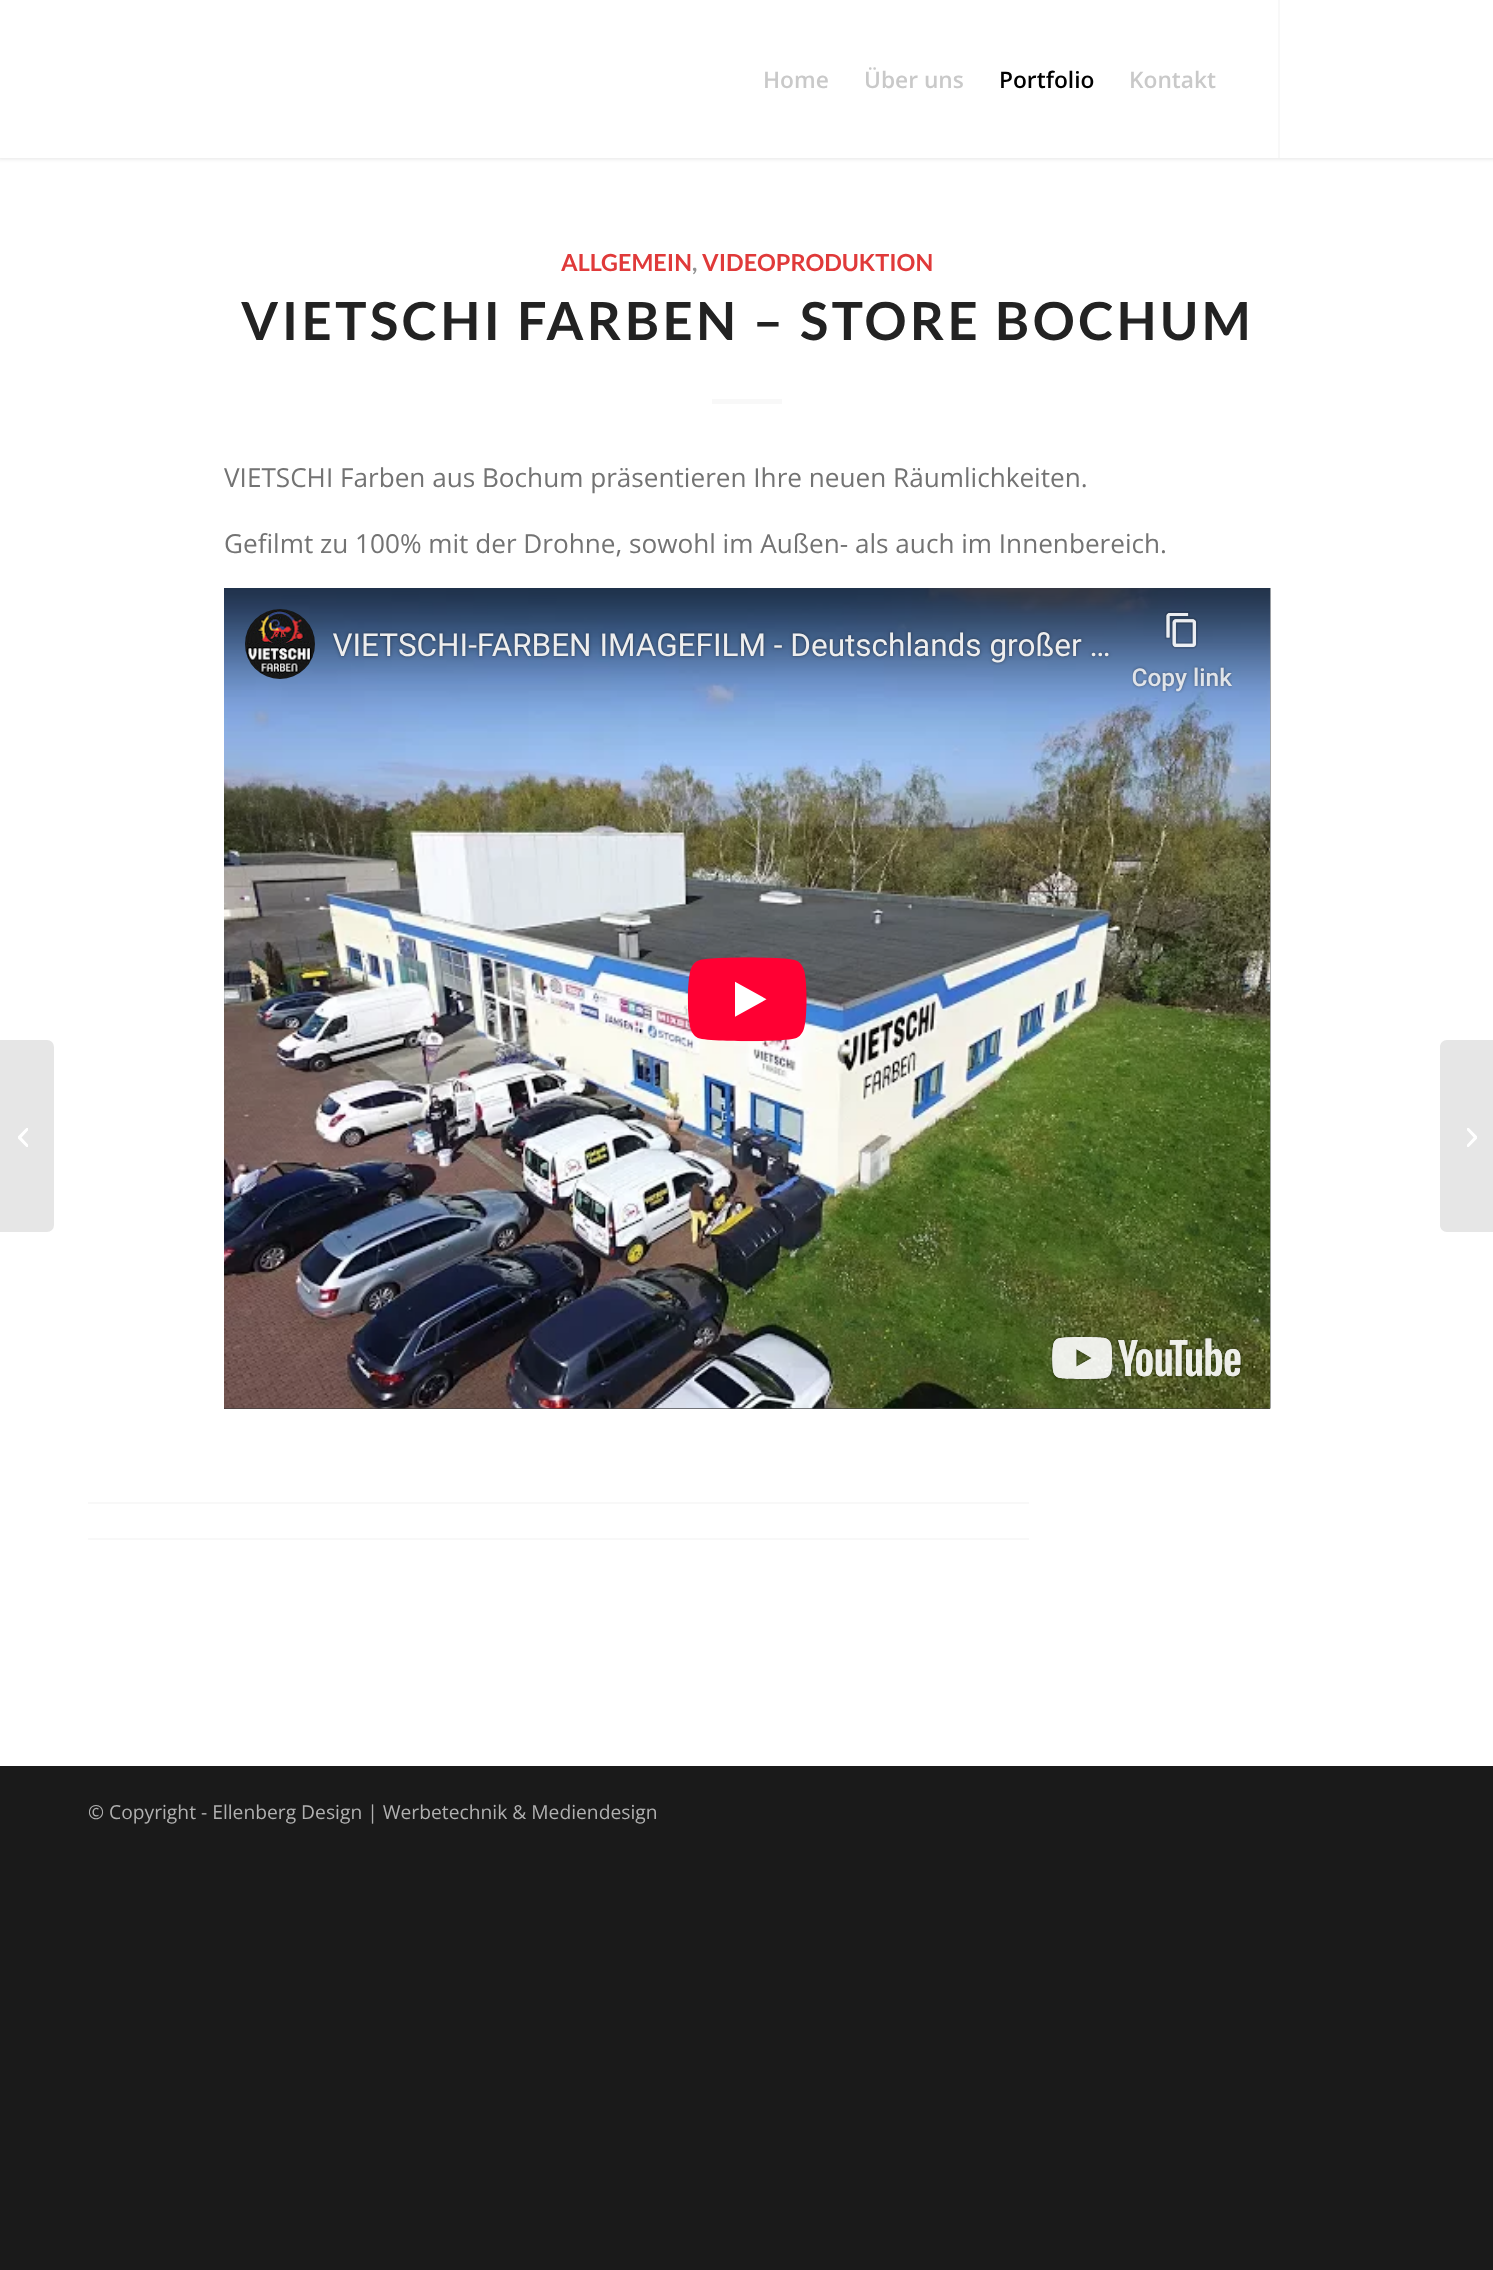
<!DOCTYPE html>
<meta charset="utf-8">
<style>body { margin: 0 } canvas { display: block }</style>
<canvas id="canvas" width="1493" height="2270"></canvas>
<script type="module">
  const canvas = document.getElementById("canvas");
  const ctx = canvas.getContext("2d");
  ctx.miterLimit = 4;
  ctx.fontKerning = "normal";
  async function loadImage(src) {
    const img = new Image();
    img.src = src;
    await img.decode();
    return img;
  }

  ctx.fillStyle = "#1a1a1a";
  ctx.fillRect(0, 0, 1493, 2270);
  ctx.fillStyle = "#ffffff";
  ctx.fillRect(0, 158, 1493, 1608);
  ctx.fillStyle = "rgba(0, 0, 0, 0.1)";
  ctx.filter = "blur(2px)";
  ctx.beginPath();
  ctx.rect(-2, -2, 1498, 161);
  ctx.fill();
  ctx.filter = "none";
  ctx.fillStyle = "#ffffff";
  ctx.fillRect(0, 0, 1493, 158);
  ctx.fillStyle = "#f8f8f8";
  ctx.fillRect(1278, 0, 2, 158);
  ctx.font = "600 22.75px Open Sans";
  ctx.fillStyle = "#c9c9c9";
  ctx.fillText("Home", 763, 88);
  ctx.fillText("Über uns", 864, 88);
  ctx.fillStyle = "#000000";
  ctx.fillText("Portfolio", 999, 88);
  ctx.fillStyle = "#c9c9c9";
  ctx.fillText("Kontakt", 1129, 88);
  ctx.fillStyle = "#e6e6e6";
  ctx.beginPath();
  ctx.roundRect(0, 1040, 54, 192, [0, 7, 7, 0]);
  ctx.fill();
  ctx.drawImage(await loadImage("img1.png"), 18, 1128, 10, 19);
  ctx.font = "bold 23.5px Lato";
  ctx.fillStyle = "#e03a3a";
  ctx.fillText("ALLGEMEIN", 561, 271);
  ctx.fillStyle = "#919191";
  ctx.fillText(",", 692, 271);
  ctx.fillStyle = "#e03a3a";
  ctx.fillText("VIDEOPRODUKTION", 702, 271);
  ctx.letterSpacing = "3.5px";
  ctx.font = "bold 52.5px Lato";
  ctx.fillStyle = "#222222";
  ctx.fillText("VIETSCHI FARBEN – STORE BOCHUM", 241, 340);
  ctx.fillStyle = "#f8f8f8";
  ctx.fillRect(712, 399, 70, 5);
  ctx.letterSpacing = "0px";
  ctx.font = "26.15px Open Sans";
  ctx.fillStyle = "#737373";
  ctx.fillText("VIETSCHI Farben aus Bochum präsentieren Ihre neuen Räumlichkeiten.", 224, 487);
  ctx.fillText("Gefilmt zu 100% mit der Drohne, sowohl im Außen- als auch im Innenbereich.", 224, 553);
  ctx.drawImage(await loadImage("img2.png"), 224, 588, 1047, 821);
  ctx.fillStyle = "#f8f8f8";
  ctx.fillRect(88, 1502, 941, 2);
  ctx.fillRect(88, 1538, 941, 2);
  ctx.font = "19.25px Open Sans";
  ctx.fillStyle = "#b0b0b0";
  ctx.fillText("© Copyright - Ellenberg Design | Werbetechnik & Mediendesign", 88, 1819);
  ctx.fillStyle = "#e6e6e6";
  ctx.beginPath();
  ctx.moveTo(1447, 1040);
  ctx.lineTo(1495, 1040);
  ctx.lineTo(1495, 1232);
  ctx.lineTo(1447, 1232);
  ctx.bezierCurveTo(1443, 1232, 1440, 1229, 1440, 1225);
  ctx.lineTo(1440, 1047);
  ctx.bezierCurveTo(1440, 1043, 1443, 1040, 1447, 1040);
  ctx.closePath();
  ctx.fill();
  ctx.drawImage(await loadImage("img3.png"), 1467, 1128, 10, 19);
</script>
